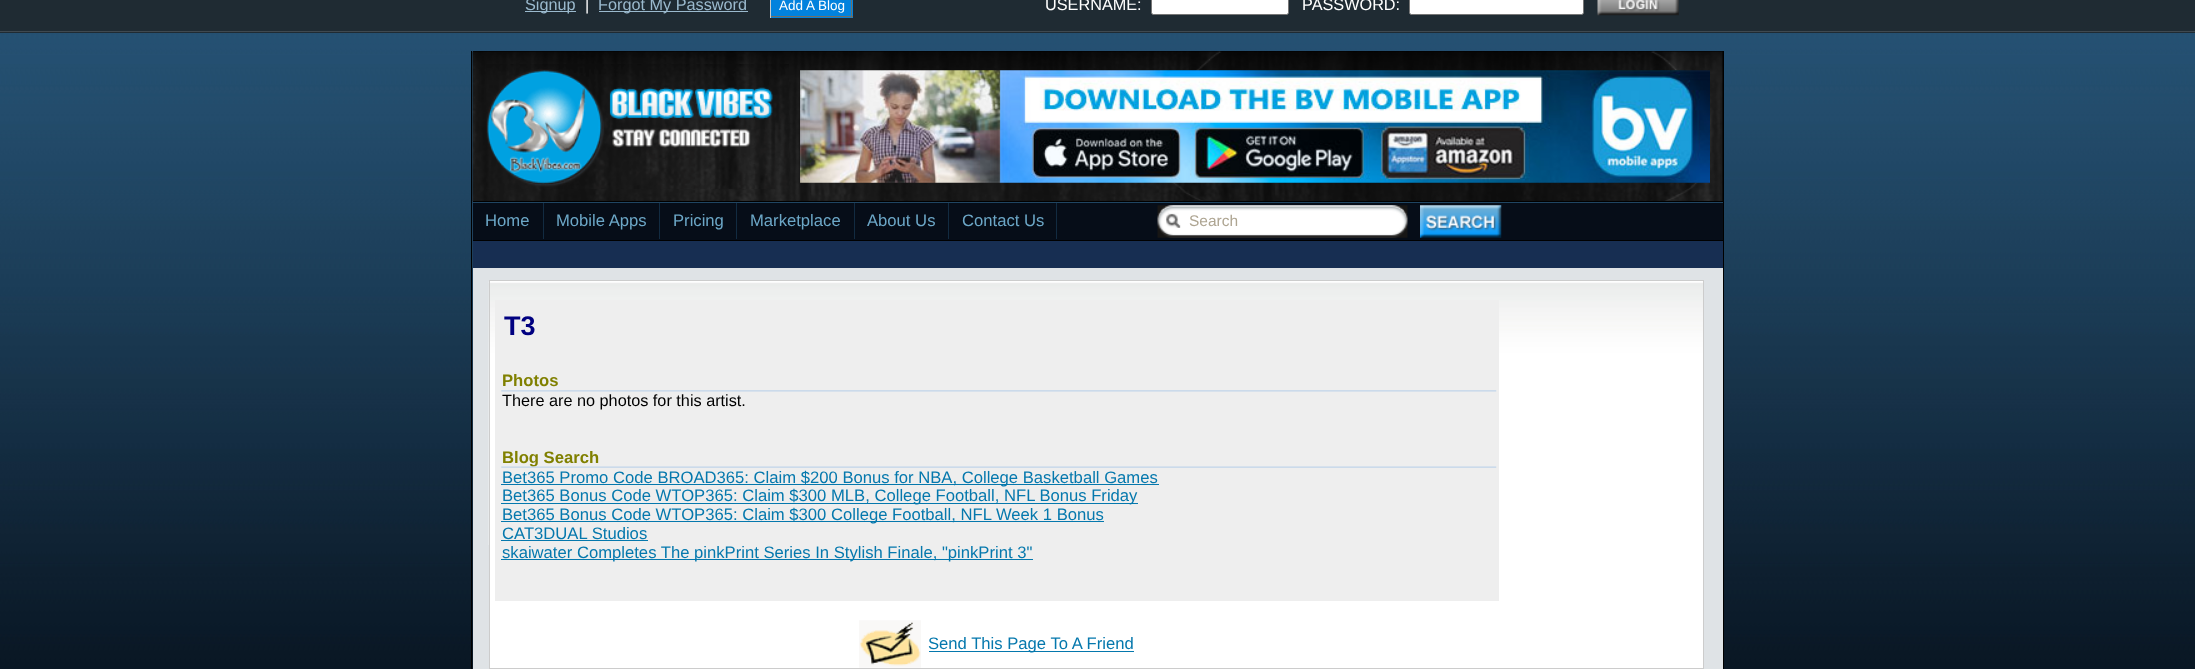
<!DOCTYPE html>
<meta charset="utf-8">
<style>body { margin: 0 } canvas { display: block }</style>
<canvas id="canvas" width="2195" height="669"></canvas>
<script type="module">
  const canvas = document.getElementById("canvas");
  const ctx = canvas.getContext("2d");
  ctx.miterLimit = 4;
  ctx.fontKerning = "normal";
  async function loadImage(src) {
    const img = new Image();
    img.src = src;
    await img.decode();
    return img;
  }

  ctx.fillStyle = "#ffffff";
  ctx.fillRect(0, 0, 2195, 669);
  ctx.drawImage(await loadImage("img1.png"), 0, 33, 2195, 636);
  ctx.fillStyle = "#1f2b33";
  ctx.fillRect(0, 0, 2195, 33);
  ctx.fillStyle = "#3f4950";
  ctx.fillRect(0, 31, 2195, 1);
  ctx.fillStyle = "#9bbace";
  ctx.fillRect(525, 11, 51, 1);
  ctx.font = "16.25px Liberation Sans";
  ctx.fillText("Signup", 525, 10);
  ctx.fillStyle = "#ffffff";
  ctx.fillText("|", 585, 10);
  ctx.fillStyle = "#9bbace";
  ctx.fillRect(599, 11, 149, 1);
  ctx.fillText("Forgot My Password", 598, 10);
  ctx.fillStyle = "#0282dd";
  ctx.fillRect(771, 0, 82, 18);
  ctx.font = "13.5px Liberation Sans";
  ctx.fillStyle = "#ffffff";
  ctx.fillText("Add A Blog", 779, 10);
  ctx.fillStyle = "#716f64";
  ctx.fillRect(851, 0, 1, 18);
  ctx.fillRect(770, 16, 83, 1);
  ctx.fillStyle = "#cccccc";
  ctx.fillRect(770, 0, 1, 18);
  ctx.font = "16.25px Liberation Sans";
  ctx.fillStyle = "#ffffff";
  ctx.fillText("USERNAME:", 1045, 10);
  ctx.beginPath();
  ctx.roundRect(1151.5, -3.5, 137, 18, 2);
  ctx.fill();
  ctx.strokeStyle = "#767676";
  ctx.stroke();
  ctx.fillText("PASSWORD:", 1302, 10);
  ctx.beginPath();
  ctx.roundRect(1409.5, -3.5, 174, 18, 2);
  ctx.fill();
  ctx.stroke();
  ctx.drawImage(await loadImage("img2.png"), 1597, 0, 82, 16);
  ctx.fillStyle = "#000000";
  ctx.fillRect(1723, 51, 1, 618);
  ctx.fillRect(471, 51, 1, 618);
  ctx.fillRect(473, 51, 1250, 150);
  ctx.drawImage(await loadImage("img3.png"), 472, 51, 1251, 151);
  ctx.drawImage(await loadImage("img4.png"), 486, 64, 303, 125);
  ctx.drawImage(await loadImage("img5.png"), 800, 70, 910, 113);
  ctx.fillRect(473, 201, 1250, 1);
  ctx.fillRect(473, 240, 1250, 1);
  ctx.fillStyle = "#060d18";
  ctx.fillRect(473, 203, 1250, 37);
  ctx.fillStyle = "#122b41";
  ctx.fillRect(543, 203, 1, 36);
  ctx.font = "16.65px Liberation Sans";
  ctx.fillStyle = "#6ca7c7";
  ctx.fillText("Home", 485, 226);
  ctx.fillStyle = "#122b41";
  ctx.fillRect(659, 203, 1, 36);
  ctx.fillStyle = "#6ca7c7";
  ctx.fillText("Mobile Apps", 556, 226);
  ctx.fillStyle = "#122b41";
  ctx.fillRect(736, 203, 1, 36);
  ctx.fillStyle = "#6ca7c7";
  ctx.fillText("Pricing", 673, 226);
  ctx.fillStyle = "#122b41";
  ctx.fillRect(854, 203, 1, 36);
  ctx.fillStyle = "#6ca7c7";
  ctx.fillText("Marketplace", 750, 226);
  ctx.fillStyle = "#122b41";
  ctx.fillRect(948, 203, 1, 36);
  ctx.fillStyle = "#6ca7c7";
  ctx.fillText("About Us", 867, 226);
  ctx.fillStyle = "#122b41";
  ctx.fillRect(1056, 203, 1, 36);
  ctx.fillStyle = "#6ca7c7";
  ctx.fillText("Contact Us", 962, 226);
  ctx.drawImage(await loadImage("img6.png"), 1157, 205, 251, 33);
  ctx.font = "15.5px Liberation Sans";
  ctx.fillStyle = "#aea592";
  ctx.fillText("Search", 1189, 226);
  ctx.drawImage(await loadImage("img7.png"), 1420, 205, 82, 33);
  ctx.fillStyle = "#172e52";
  ctx.fillRect(473, 241, 1250, 27);
  ctx.fillStyle = "#dfe3e6";
  ctx.fillRect(473, 268, 1250, 401);
  ctx.fillStyle = "#ffffff";
  ctx.fillRect(490, 281, 1213, 387);
  ctx.drawImage(await loadImage("img8.png"), 488, 281, 1215, 264);
  ctx.strokeStyle = "#cccccc";
  ctx.strokeRect(489.5, 280.5, 1214, 388);
  ctx.fillStyle = "#eeeeee";
  ctx.fillRect(495, 300, 1004, 301);
  ctx.font = "bold 27px Liberation Sans";
  ctx.fillStyle = "#000080";
  ctx.fillText("T3", 504, 335);
  ctx.font = "bold 16.65px Liberation Sans";
  ctx.fillStyle = "#808000";
  ctx.fillText("Photos", 502, 386);
  ctx.drawImage(await loadImage("img9.png"), 501, 390, 996, 2);
  ctx.font = "16.25px Liberation Sans";
  ctx.fillStyle = "#000000";
  ctx.fillText("There are no photos for this artist.", 502, 406);
  ctx.font = "bold 16.65px Liberation Sans";
  ctx.fillStyle = "#808000";
  ctx.fillText("Blog Search", 502, 463);
  ctx.drawImage(await loadImage("img10.png"), 501, 466, 996, 2);
  ctx.fillStyle = "#0578ad";
  ctx.fillRect(501, 484, 658, 1);
  ctx.font = "16.65px Liberation Sans";
  ctx.fillText("Bet365 Promo Code BROAD365: Claim $200 Bonus for NBA, College Basketball Games", 502, 483);
  ctx.fillRect(501, 503, 637, 1);
  ctx.fillText("Bet365 Bonus Code WTOP365: Claim $300 MLB, College Football, NFL Bonus Friday", 502, 501);
  ctx.fillRect(501, 521, 603, 1);
  ctx.fillText("Bet365 Bonus Code WTOP365: Claim $300 College Football, NFL Week 1 Bonus", 502, 520);
  ctx.fillText("CAT3DUAL Studios", 502, 539);
  ctx.fillRect(501, 540, 147, 1);
  ctx.fillRect(501, 559, 532, 1);
  ctx.fillText("skaiwater Completes The pinkPrint Series In Stylish Finale, \"pinkPrint 3\"", 502, 558);
  ctx.drawImage(await loadImage("img11.png"), 859, 620, 62, 48);
  ctx.fillRect(929, 651, 205, 1);
  ctx.fillText("Send This Page To A Friend", 928, 649);
</script>
